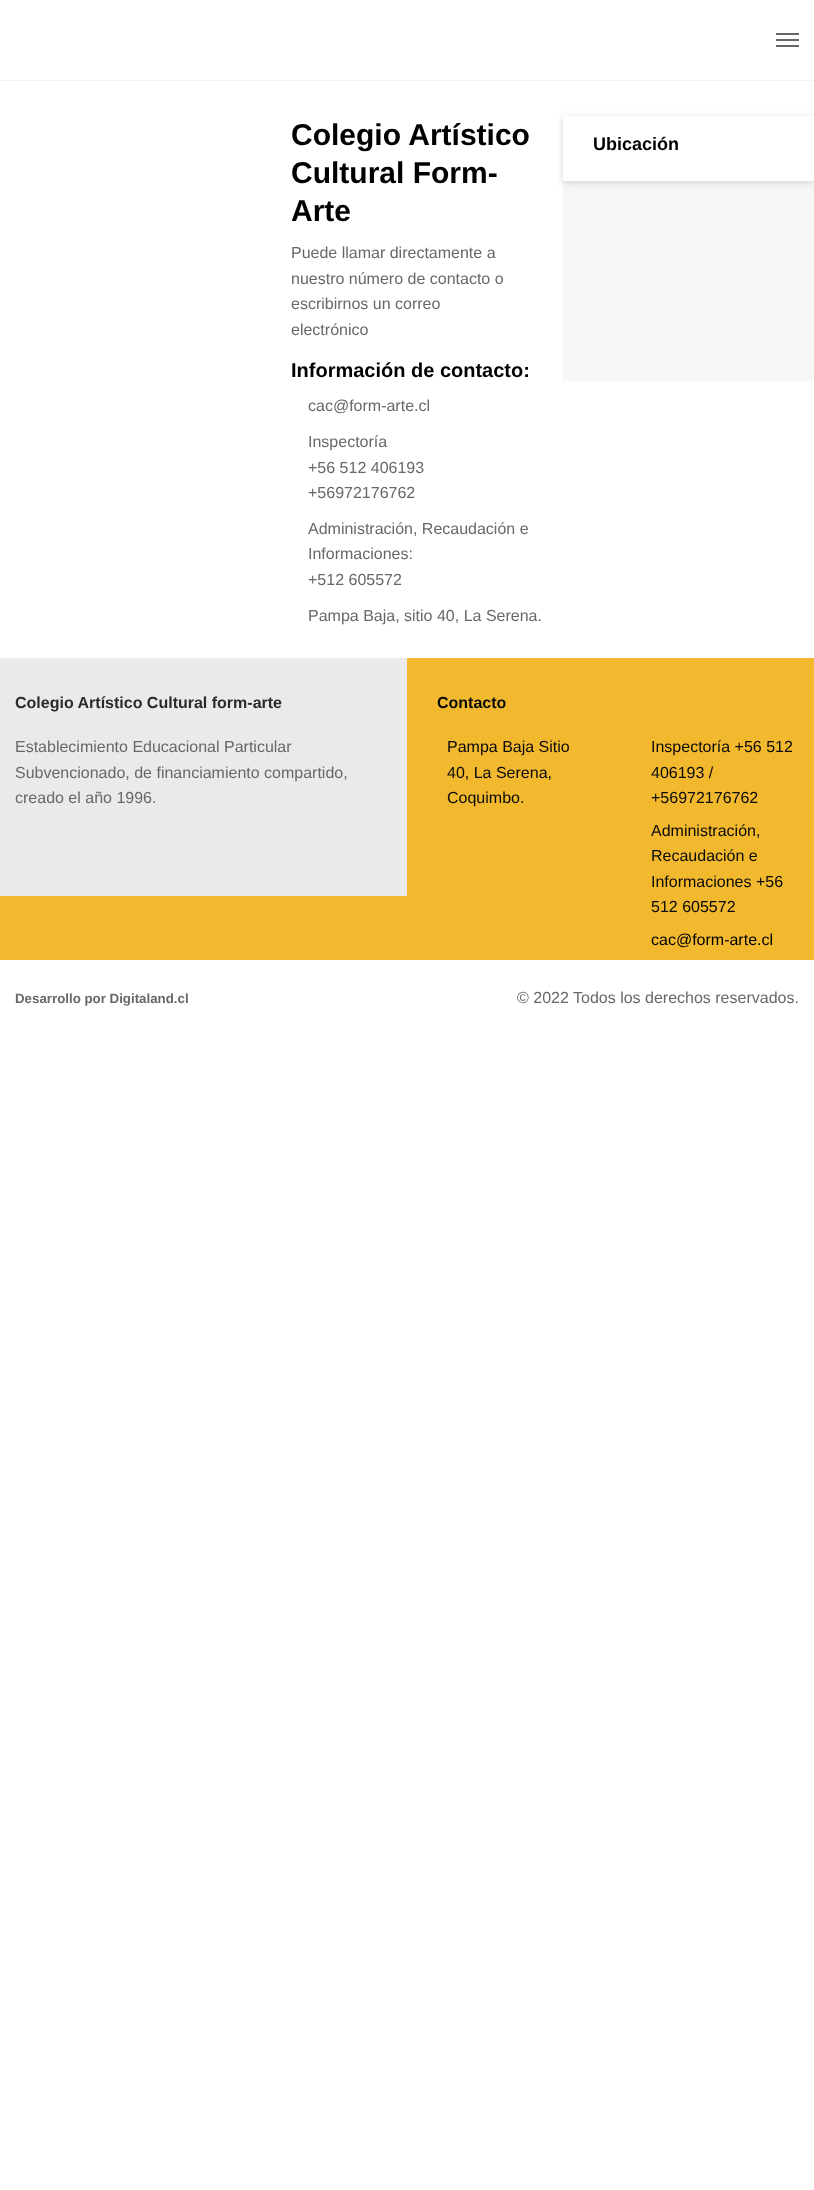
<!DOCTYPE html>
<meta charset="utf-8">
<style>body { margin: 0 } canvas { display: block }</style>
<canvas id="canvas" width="814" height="2190"></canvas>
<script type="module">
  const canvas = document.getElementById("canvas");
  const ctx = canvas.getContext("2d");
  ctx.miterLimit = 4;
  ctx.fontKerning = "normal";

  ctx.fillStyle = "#ffffff";
  ctx.fillRect(0, 0, 814, 2190);
  ctx.fillStyle = "#f5f5f5";
  ctx.fillRect(0, 80, 814, 1);
  ctx.fillStyle = "#686868";
  ctx.fillRect(776, 33, 23, 2);
  ctx.fillRect(776, 39, 23, 2);
  ctx.fillRect(776, 45, 23, 2);
  ctx.font = "bold 30px Liberation Sans";
  ctx.fillStyle = "#000000";
  ctx.fillText("Colegio Artístico", 291, 145);
  ctx.fillText("Cultural Form-", 291, 183);
  ctx.fillText("Arte", 291, 221);
  ctx.font = "16px Liberation Sans";
  ctx.fillStyle = "#686868";
  ctx.fillText("Puede llamar directamente a", 291, 258);
  ctx.fillText("nuestro número de contacto o", 291, 284);
  ctx.fillText("escribirnos un correo", 291, 309);
  ctx.fillText("electrónico", 291, 335);
  ctx.font = "bold 20px Liberation Sans";
  ctx.fillStyle = "#000000";
  ctx.fillText("Información de contacto:", 291, 377);
  ctx.font = "16px Liberation Sans";
  ctx.fillStyle = "#686868";
  ctx.fillText("cac@form-arte.cl", 308, 411);
  ctx.fillText("Inspectoría", 308, 447);
  ctx.fillText("+56 512 406193", 308, 473);
  ctx.fillText("+56972176762", 308, 498);
  ctx.fillText("Administración, Recaudación e", 308, 534);
  ctx.fillText("Informaciones:", 308, 559);
  ctx.fillText("+512 605572", 308, 585);
  ctx.fillText("Pampa Baja, sitio 40, La Serena.", 308, 621);
  ctx.fillStyle = "#f7f7f7";
  ctx.fillRect(563, 181, 251, 200);
  ctx.save();
  ctx.beginPath();
  ctx.moveTo(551, 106);
  ctx.lineTo(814, 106);
  ctx.lineTo(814, 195);
  ctx.lineTo(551, 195);
  ctx.closePath();
  ctx.moveTo(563, 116);
  ctx.lineTo(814, 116);
  ctx.lineTo(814, 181);
  ctx.lineTo(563, 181);
  ctx.closePath();
  ctx.clip("evenodd");
  ctx.fillStyle = "#d4d4d4";
  ctx.filter = "blur(3.5px)";
  ctx.beginPath();
  ctx.rect(563, 118, 251, 65);
  ctx.fill();
  ctx.filter = "none";
  ctx.restore();
  ctx.font = "bold 18px Liberation Sans";
  ctx.fillStyle = "#000000";
  ctx.fillText("Ubicación", 593, 150);
  ctx.fillStyle = "#f2b92f";
  ctx.fillRect(0, 658, 814, 302);
  ctx.fillStyle = "#eaeaea";
  ctx.fillRect(0, 658, 407, 238);
  ctx.font = "bold 16px Liberation Sans";
  ctx.fillStyle = "#2b2b2b";
  ctx.fillText("Colegio Artístico Cultural form-arte", 15, 708);
  ctx.font = "16px Liberation Sans";
  ctx.fillStyle = "#686868";
  ctx.fillText("Establecimiento Educacional Particular", 15, 752);
  ctx.fillText("Subvencionado, de financiamiento compartido,", 15, 778);
  ctx.fillText("creado el año 1996.", 15, 803);
  ctx.font = "bold 16px Liberation Sans";
  ctx.fillStyle = "#0a0a0a";
  ctx.fillText("Contacto", 437, 708);
  ctx.font = "16px Liberation Sans";
  ctx.fillText("Pampa Baja Sitio", 447, 752);
  ctx.fillText("40, La Serena,", 447, 778);
  ctx.fillText("Coquimbo.", 447, 803);
  ctx.fillText("Inspectoría +56 512", 651, 752);
  ctx.fillText("406193 /", 651, 778);
  ctx.fillText("+56972176762", 651, 803);
  ctx.fillText("Administración,", 651, 836);
  ctx.fillText("Recaudación e", 651, 861);
  ctx.fillText("Informaciones +56", 651, 887);
  ctx.fillText("512 605572", 651, 912);
  ctx.fillStyle = "#000000";
  ctx.fillText("cac@form-arte.cl", 651, 945);
  ctx.font = "bold 13.3px Liberation Sans";
  ctx.fillStyle = "#686868";
  ctx.fillText("Desarrollo por Digitaland.cl", 15, 1003);
  ctx.font = "16px Liberation Sans";
  ctx.fillText("© 2022 Todos los derechos reservados.", 517, 1003);
</script>
